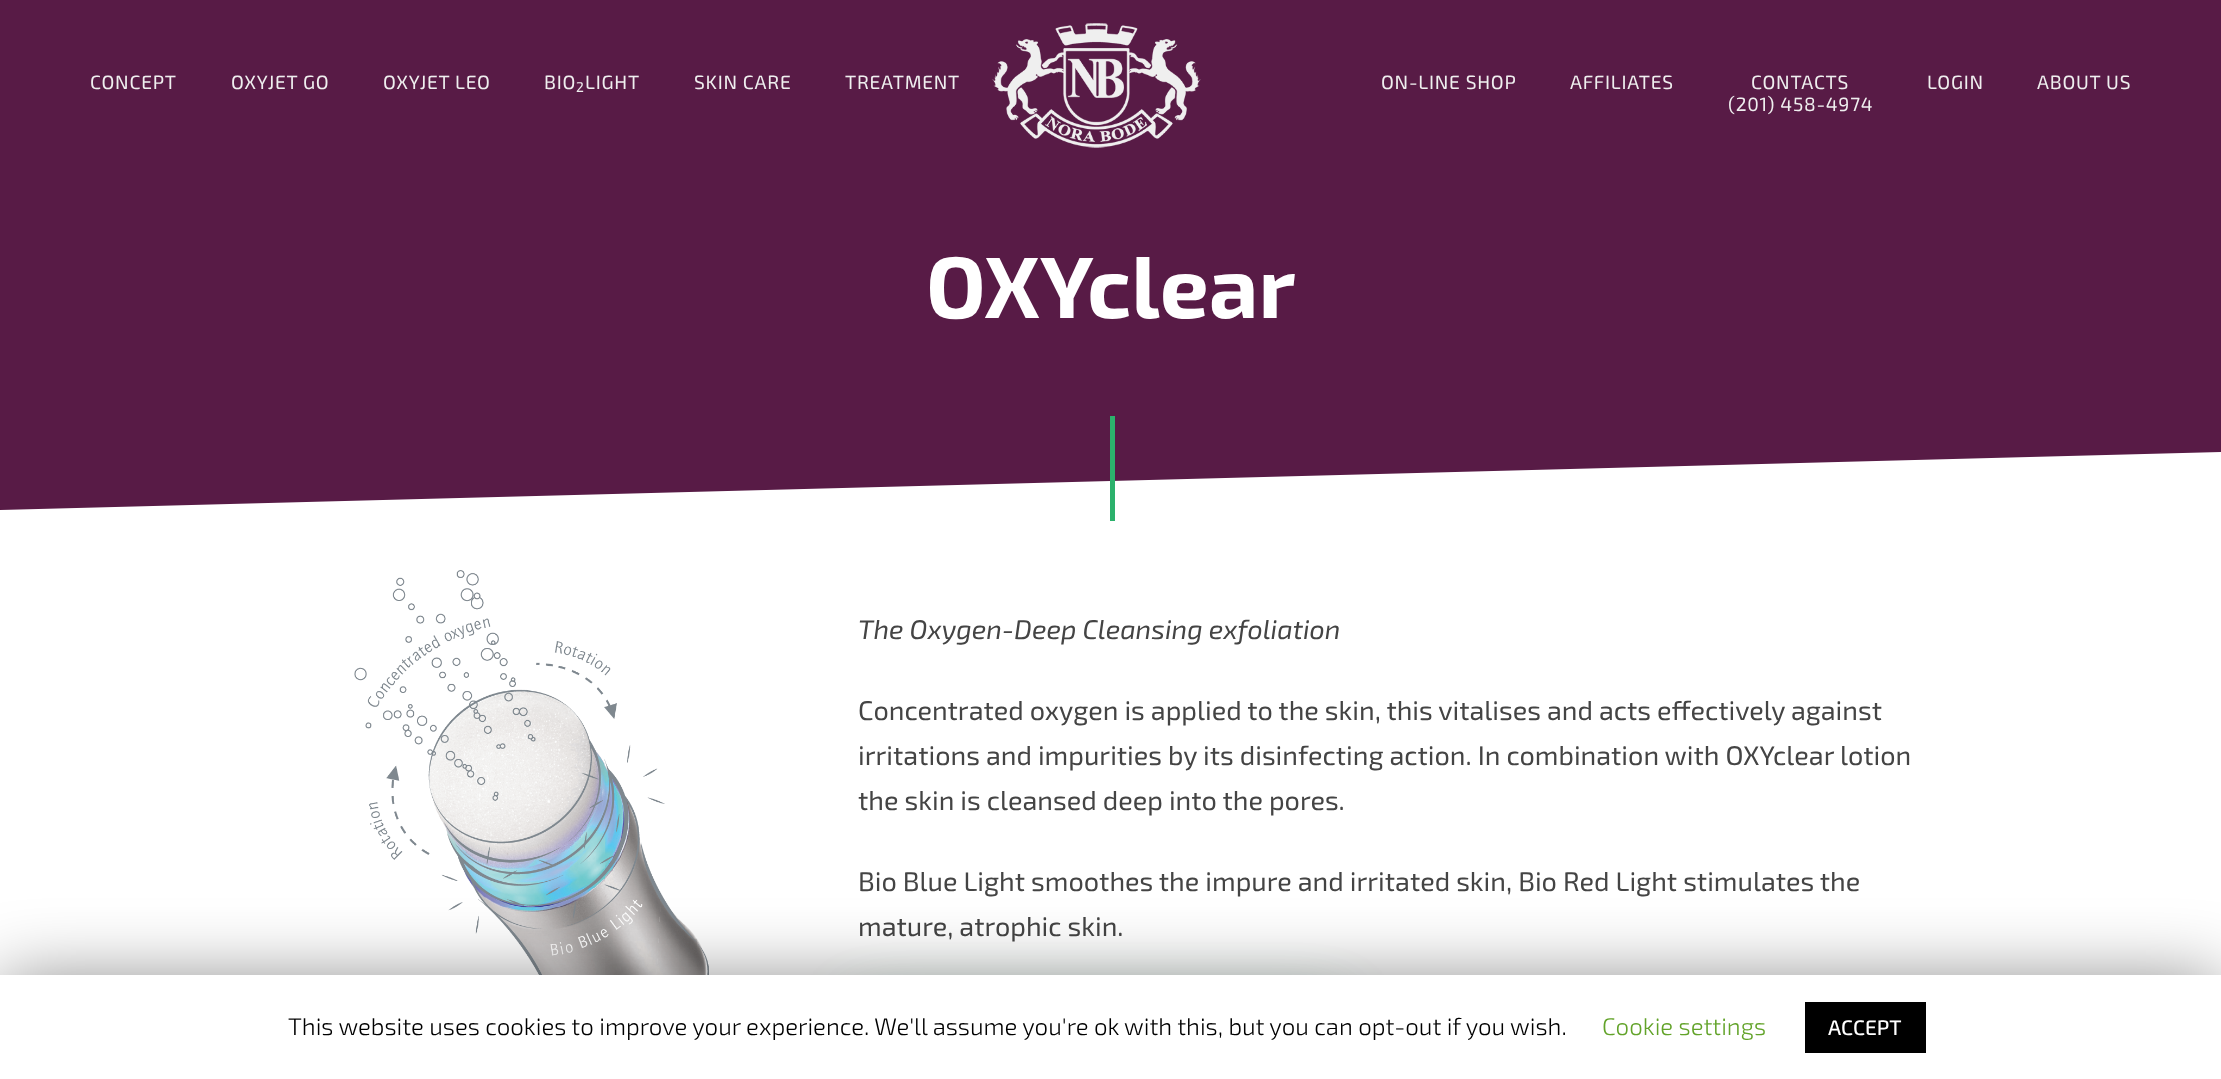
<!DOCTYPE html>
<meta charset="utf-8">
<style>body { margin: 0 } canvas { display: block }</style>
<canvas id="canvas" width="2221" height="1079"></canvas>
<script type="module">
  const canvas = document.getElementById("canvas");
  const ctx = canvas.getContext("2d");
  ctx.miterLimit = 4;
  ctx.fontKerning = "normal";
  async function loadImage(src) {
    const img = new Image();
    img.src = src;
    await img.decode();
    return img;
  }

  ctx.fillStyle = "#ffffff";
  ctx.fillRect(0, 0, 2221, 1079);
  ctx.fillStyle = "#581b46";
  ctx.fillRect(0, 0, 2221, 510);
  ctx.drawImage(await loadImage("img1.png"), 992, 23, 209, 125);
  ctx.letterSpacing = "0.75px";
  ctx.font = "19.25px 'Exo 2'";
  ctx.fillStyle = "#efefef";
  ctx.fillText("CONCEPT", 90, 89);
  ctx.fillText("OXYJET GO", 231, 89);
  ctx.fillText("OXYJET LEO", 383, 89);
  ctx.fillText("BIO", 544, 89);
  ctx.font = "14px 'Exo 2'";
  ctx.fillText("2", 576, 92);
  ctx.font = "19.25px 'Exo 2'";
  ctx.fillText("LIGHT", 585, 89);
  ctx.fillText("SKIN CARE", 694, 89);
  ctx.fillText("TREATMENT", 845, 89);
  ctx.fillText("ON-LINE SHOP", 1381, 89);
  ctx.fillText("AFFILIATES", 1570, 89);
  ctx.fillText("CONTACTS", 1751, 89);
  ctx.fillText("(201) 458-4974", 1728, 111);
  ctx.fillText("LOGIN", 1927, 89);
  ctx.fillText("ABOUT US", 2037, 89);
  ctx.letterSpacing = "0px";
  ctx.font = "bold 87px 'Exo 2'";
  ctx.fillStyle = "#ffffff";
  ctx.fillText("OXYclear", 926, 318);
  ctx.beginPath();
  ctx.moveTo(0, 510);
  ctx.lineTo(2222, 452);
  ctx.lineTo(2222, 572);
  ctx.lineTo(0, 630);
  ctx.closePath();
  ctx.fill();
  ctx.fillStyle = "#2cb16c";
  ctx.fillRect(1110, 416, 5, 105);
  ctx.drawImage(await loadImage("img2.png"), 354, 570, 355, 405);
  ctx.font = "italic 27px 'Exo 2'";
  ctx.fillStyle = "#444444";
  ctx.fillText("The Oxygen-Deep Cleansing exfoliation", 858, 639);
  ctx.font = "27px 'Exo 2'";
  ctx.fillText("Concentrated oxygen is applied to the skin, this vitalises and acts effectively against", 858, 720);
  ctx.fillText("irritations and impurities by its disinfecting action. In combination with OXYclear lotion", 858, 765);
  ctx.fillText("the skin is cleansed deep into the pores.", 858, 810);
  ctx.fillText("Bio Blue Light smoothes the impure and irritated skin, Bio Red Light stimulates the", 858, 891);
  ctx.fillText("mature, atrophic skin.", 858, 936);
  ctx.fillStyle = "rgba(44, 177, 108, 0.3)";
  ctx.filter = "blur(30px)";
  ctx.beginPath();
  ctx.roundRect(858, 1007, 479, 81, 6);
  ctx.fill();
  ctx.filter = "none";
  ctx.fillStyle = "rgba(0, 0, 0, 0.5)";
  ctx.filter = "blur(37.5px)";
  ctx.beginPath();
  ctx.rect(0, 983, 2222, 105);
  ctx.fill();
  ctx.filter = "none";
  ctx.fillStyle = "#ffffff";
  ctx.fillRect(0, 975, 2221, 104);
  ctx.font = "300 24px 'Exo 2'";
  ctx.fillStyle = "#000000";
  ctx.fillText("This website uses cookies to improve your experience. We'll assume you're ok with this, but you can opt-out if you wish.", 288, 1035);
  ctx.fillStyle = "#62a329";
  ctx.fillText("Cookie settings", 1602, 1035);
  ctx.fillStyle = "#000000";
  ctx.fillRect(1805, 1002, 121, 51);
  ctx.font = "500 21px 'Exo 2'";
  ctx.fillStyle = "#ffffff";
  ctx.fillText("ACCEPT", 1828, 1035);
</script>
